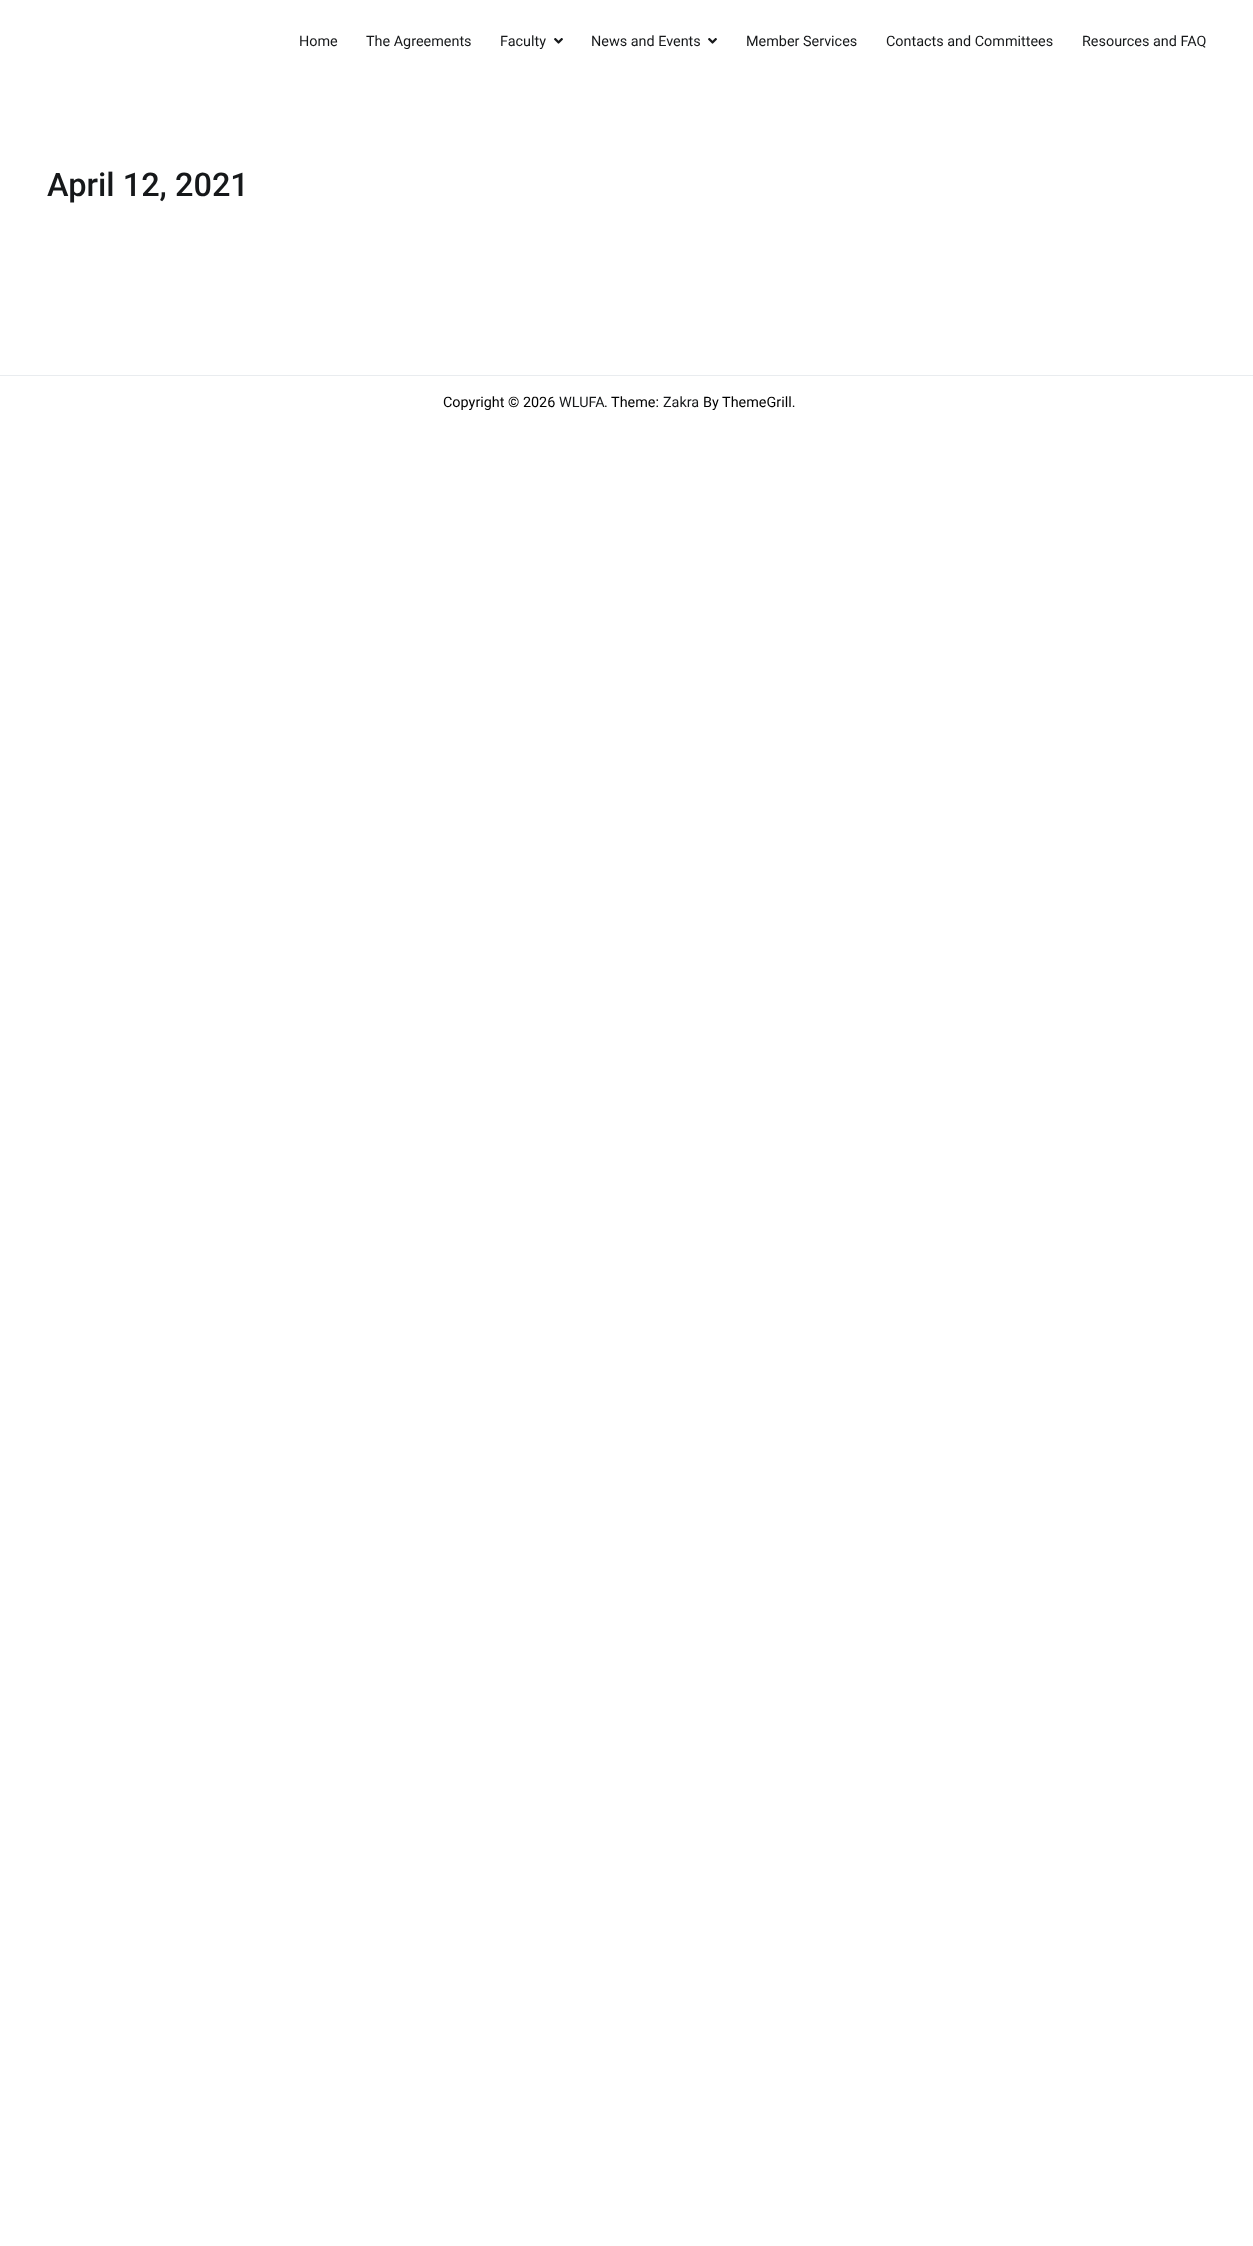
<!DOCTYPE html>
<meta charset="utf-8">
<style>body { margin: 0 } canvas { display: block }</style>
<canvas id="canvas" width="1253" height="2246"></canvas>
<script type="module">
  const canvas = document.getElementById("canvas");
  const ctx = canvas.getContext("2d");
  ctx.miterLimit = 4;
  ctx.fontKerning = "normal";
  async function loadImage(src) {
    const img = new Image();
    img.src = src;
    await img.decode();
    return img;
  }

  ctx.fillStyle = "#ffffff";
  ctx.fillRect(0, 0, 1253, 2246);
  ctx.font = "14.4px Roboto";
  ctx.fillStyle = "#16181a";
  ctx.fillText("Home", 299, 46);
  ctx.fillText("The Agreements", 366, 46);
  ctx.fillText("Faculty", 500, 46);
  ctx.drawImage(await loadImage("img1.png"), 554, 38, 9, 6);
  ctx.fillText("News and Events", 591, 46);
  ctx.drawImage(await loadImage("img1.png"), 708, 38, 9, 6);
  ctx.fillText("Member Services", 746, 46);
  ctx.fillText("Contacts and Committees", 886, 46);
  ctx.fillText("Resources and FAQ", 1082, 46);
  ctx.font = "500 32.5px Roboto";
  ctx.fillText("April 12, 2021", 47, 196);
  ctx.fillStyle = "#e9ecef";
  ctx.fillRect(0, 375, 1253, 1);
  ctx.font = "14.4px Roboto";
  ctx.fillStyle = "#000000";
  ctx.fillText("Copyright © 2026", 443, 407);
  ctx.fillStyle = "#16181a";
  ctx.fillText("WLUFA", 559, 407);
  ctx.fillStyle = "#000000";
  ctx.fillText(". Theme:", 604, 407);
  ctx.fillStyle = "#16181a";
  ctx.fillText("Zakra", 663, 407);
  ctx.fillStyle = "#000000";
  ctx.fillText("By ThemeGrill.", 703, 407);
</script>
